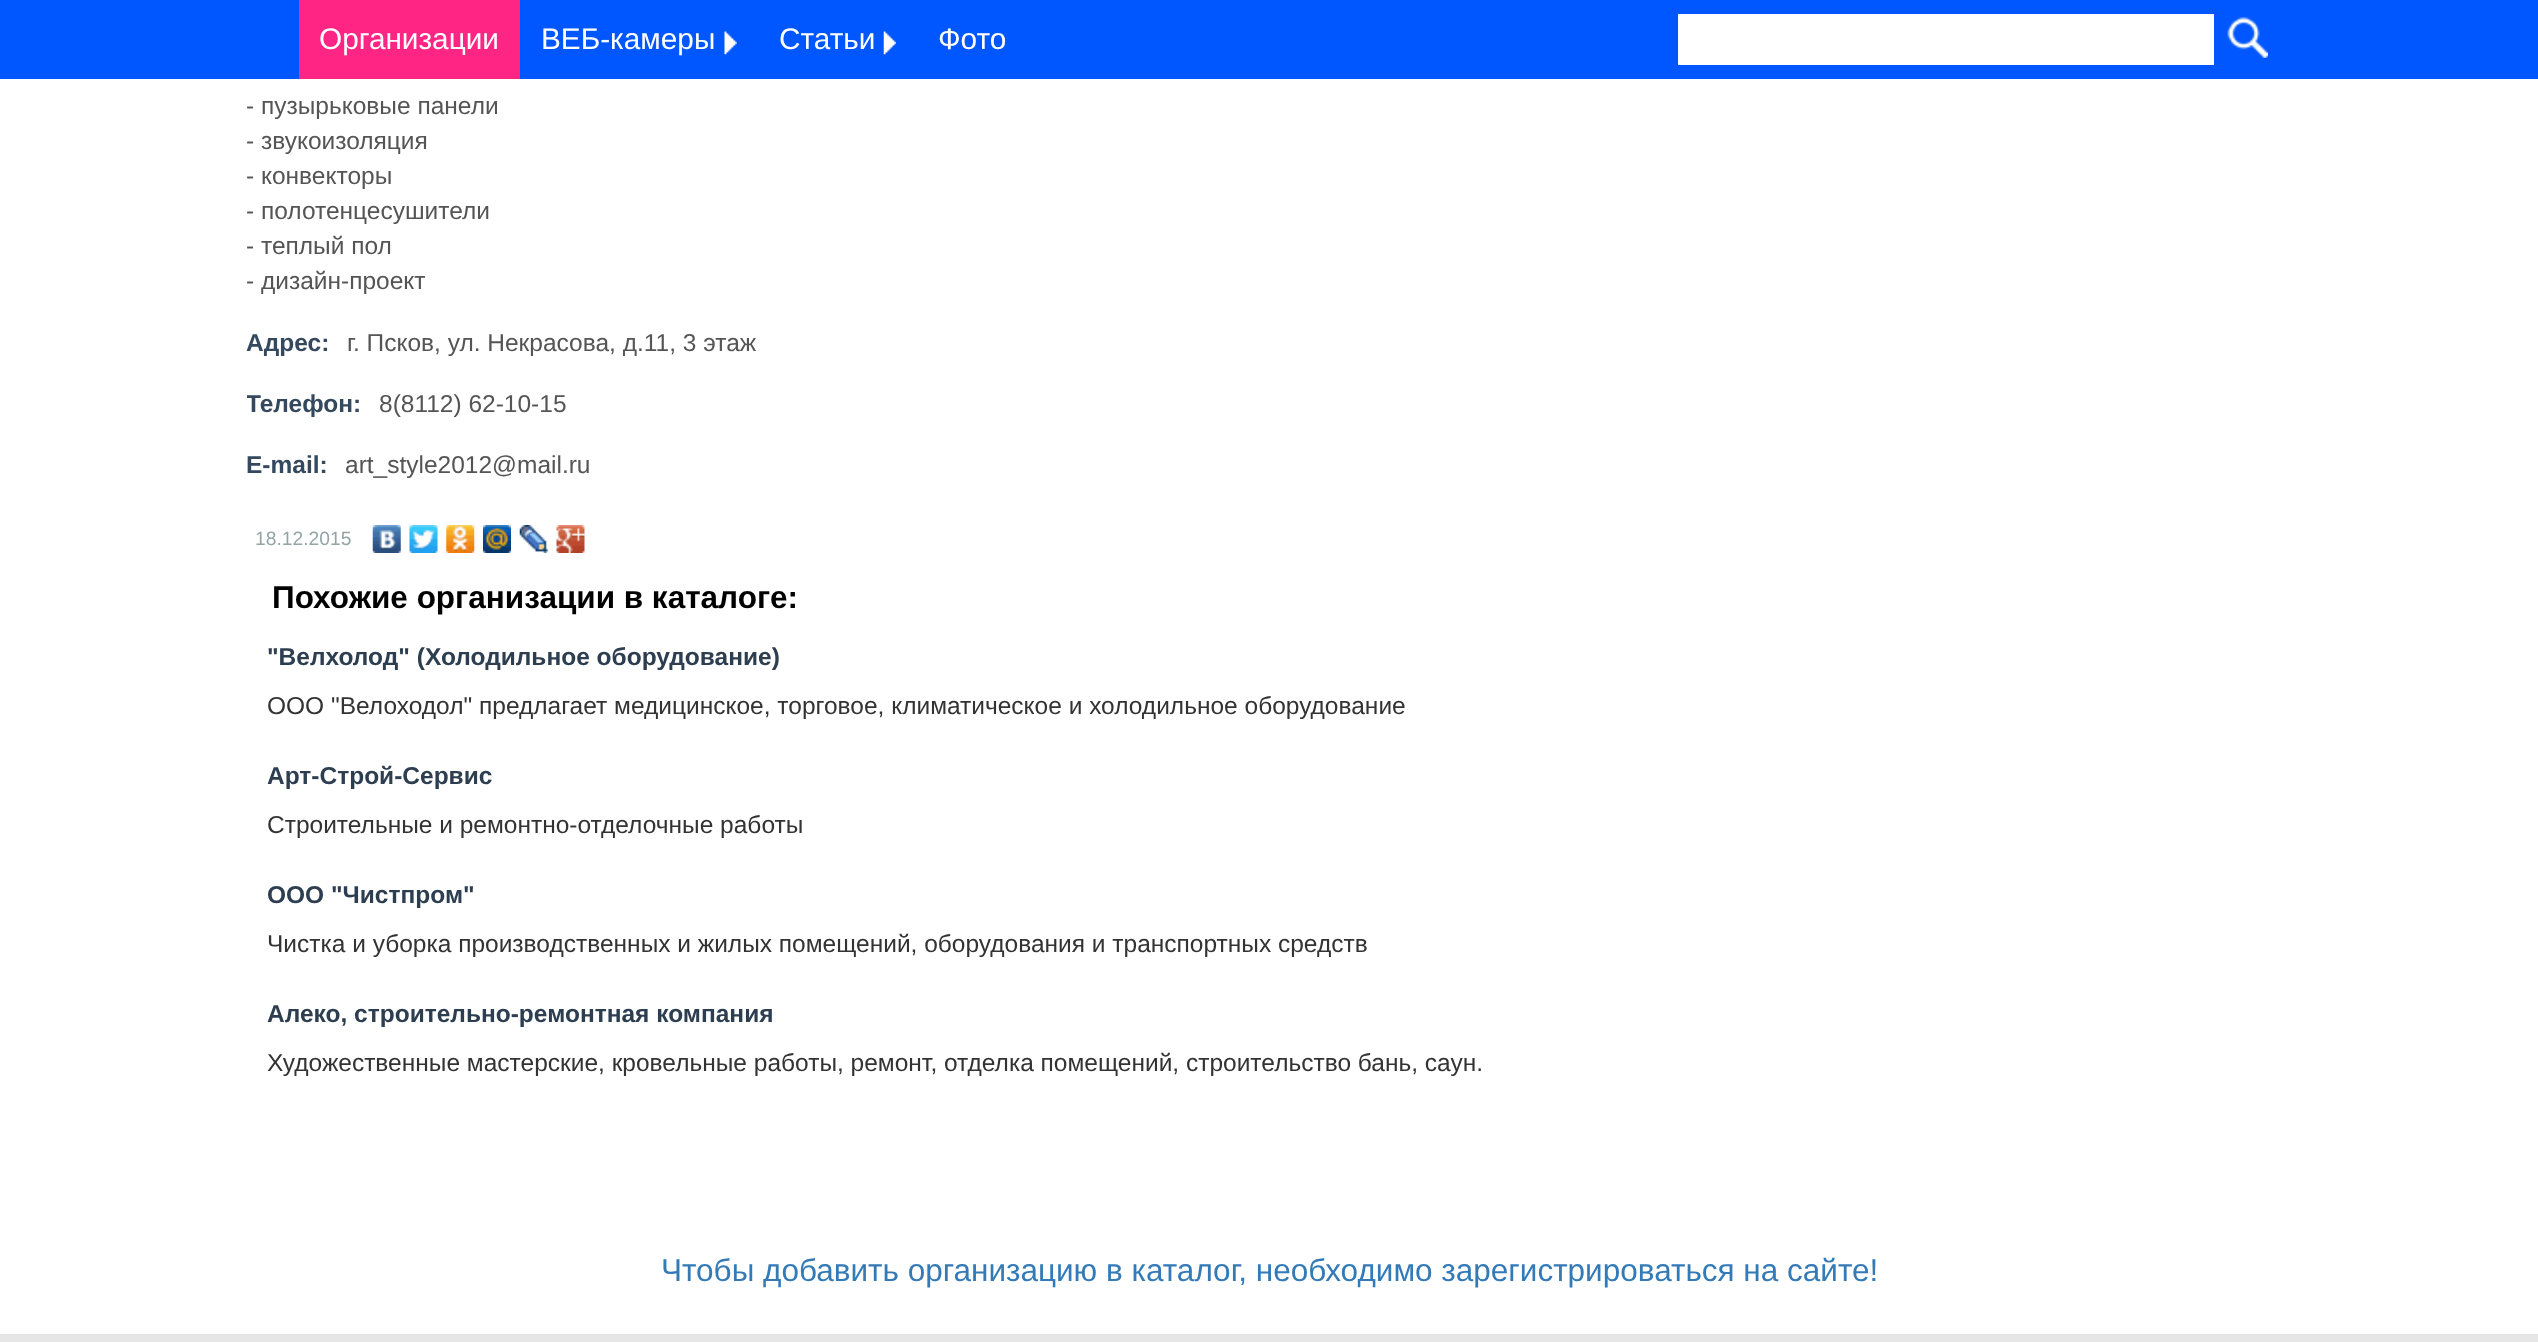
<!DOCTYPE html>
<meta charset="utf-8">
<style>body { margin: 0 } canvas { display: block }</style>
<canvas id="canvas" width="2538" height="1342"></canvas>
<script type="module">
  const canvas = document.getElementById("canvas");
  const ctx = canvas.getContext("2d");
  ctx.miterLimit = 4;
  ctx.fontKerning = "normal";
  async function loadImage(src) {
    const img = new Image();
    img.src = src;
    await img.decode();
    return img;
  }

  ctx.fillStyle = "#ffffff";
  ctx.fillRect(0, 0, 2538, 1342);
  ctx.fillStyle = "#0056ff";
  ctx.fillRect(0, 0, 2538, 79);
  ctx.fillStyle = "#ff2584";
  ctx.fillRect(299, 0, 221, 79);
  ctx.font = "29.75px Liberation Sans";
  ctx.fillStyle = "#ffffff";
  ctx.fillText("Организации", 319, 49);
  ctx.fillText("ВЕБ-камеры", 541, 49);
  ctx.drawImage(await loadImage("img1.png"), 724, 31, 13, 24);
  ctx.fillText("Статьи", 779, 49);
  ctx.drawImage(await loadImage("img2.png"), 883, 31, 13, 24);
  ctx.fillText("Фото", 938, 49);
  ctx.fillRect(1678, 14, 536, 51);
  ctx.drawImage(await loadImage("img3.png"), 2227, 17, 41, 41);
  ctx.font = "24.5px Liberation Sans";
  ctx.fillStyle = "#555555";
  ctx.fillText("- пузырьковые панели", 246, 114);
  ctx.fillText("- звукоизоляция", 246, 149);
  ctx.fillText("- конвекторы", 246, 184);
  ctx.fillText("- полотенцесушители", 246, 219);
  ctx.fillText("- теплый пол", 246, 254);
  ctx.fillText("- дизайн-проект", 246, 289);
  ctx.font = "bold 24.5px Liberation Sans";
  ctx.fillStyle = "#34495e";
  ctx.fillText("Адрес:", 246, 351);
  ctx.font = "24.5px Liberation Sans";
  ctx.fillStyle = "#555555";
  ctx.fillText("г. Псков, ул. Некрасова, д.11, 3 этаж", 347, 351);
  ctx.save();
  ctx.beginPath();
  ctx.rect(247, 385, 1347, 35);
  ctx.clip();
  ctx.font = "bold 24.5px Liberation Sans";
  ctx.fillStyle = "#34495e";
  ctx.fillText("Телефон:", 246, 412);
  ctx.restore();
  ctx.fillText("8(8112) 62-10-15", 379, 412);
  ctx.font = "bold 24.5px Liberation Sans";
  ctx.fillStyle = "#34495e";
  ctx.fillText("E-mail:", 246, 473);
  ctx.font = "24.5px Liberation Sans";
  ctx.fillStyle = "#555555";
  ctx.fillText("art_style2012@mail.ru", 345, 473);
  ctx.font = "19.25px Liberation Sans";
  ctx.fillStyle = "#95a5a6";
  ctx.fillText("18.12.2015", 255, 545);
  ctx.drawImage(await loadImage("img4.png"), 372, 525, 29, 28);
  ctx.drawImage(await loadImage("img5.png"), 409, 525, 29, 28);
  ctx.drawImage(await loadImage("img6.png"), 446, 525, 29, 28);
  ctx.drawImage(await loadImage("img7.png"), 483, 525, 28, 28);
  ctx.drawImage(await loadImage("img8.png"), 519, 525, 29, 28);
  ctx.drawImage(await loadImage("img9.png"), 556, 525, 29, 28);
  ctx.font = "bold 31.5px Liberation Sans";
  ctx.fillStyle = "#000000";
  ctx.fillText("Похожие организации в каталоге:", 272, 608);
  ctx.font = "bold 24.5px Liberation Sans";
  ctx.fillStyle = "#2c3e50";
  ctx.fillText("\"Велхолод\" (Холодильное оборудование)", 267, 665);
  ctx.font = "24.5px Liberation Sans";
  ctx.fillStyle = "#333333";
  ctx.fillText("ООО \"Велоходол\" предлагает медицинское, торговое, климатическое и холодильное оборудование", 267, 714);
  ctx.font = "bold 24.5px Liberation Sans";
  ctx.fillStyle = "#2c3e50";
  ctx.fillText("Арт-Строй-Сервис", 267, 784);
  ctx.font = "24.5px Liberation Sans";
  ctx.fillStyle = "#333333";
  ctx.fillText("Строительные и ремонтно-отделочные работы", 267, 833);
  ctx.font = "bold 24.5px Liberation Sans";
  ctx.fillStyle = "#2c3e50";
  ctx.fillText("ООО \"Чистпром\"", 267, 903);
  ctx.font = "24.5px Liberation Sans";
  ctx.fillStyle = "#333333";
  ctx.fillText("Чистка и уборка производственных и жилых помещений, оборудования и транспортных средств", 267, 952);
  ctx.font = "bold 24.5px Liberation Sans";
  ctx.fillStyle = "#2c3e50";
  ctx.fillText("Алеко, строительно-ремонтная компания", 267, 1022);
  ctx.font = "24.5px Liberation Sans";
  ctx.fillStyle = "#333333";
  ctx.fillText("Художественные мастерские, кровельные работы, ремонт, отделка помещений, строительство бань, саун.", 267, 1071);
  ctx.font = "31.5px Liberation Sans";
  ctx.fillStyle = "#337ab7";
  ctx.fillText("Чтобы добавить организацию в каталог, необходимо зарегистрироваться на сайте!", 661, 1281);
  ctx.fillStyle = "#e6e6e6";
  ctx.fillRect(0, 1334, 2538, 8);
</script>
